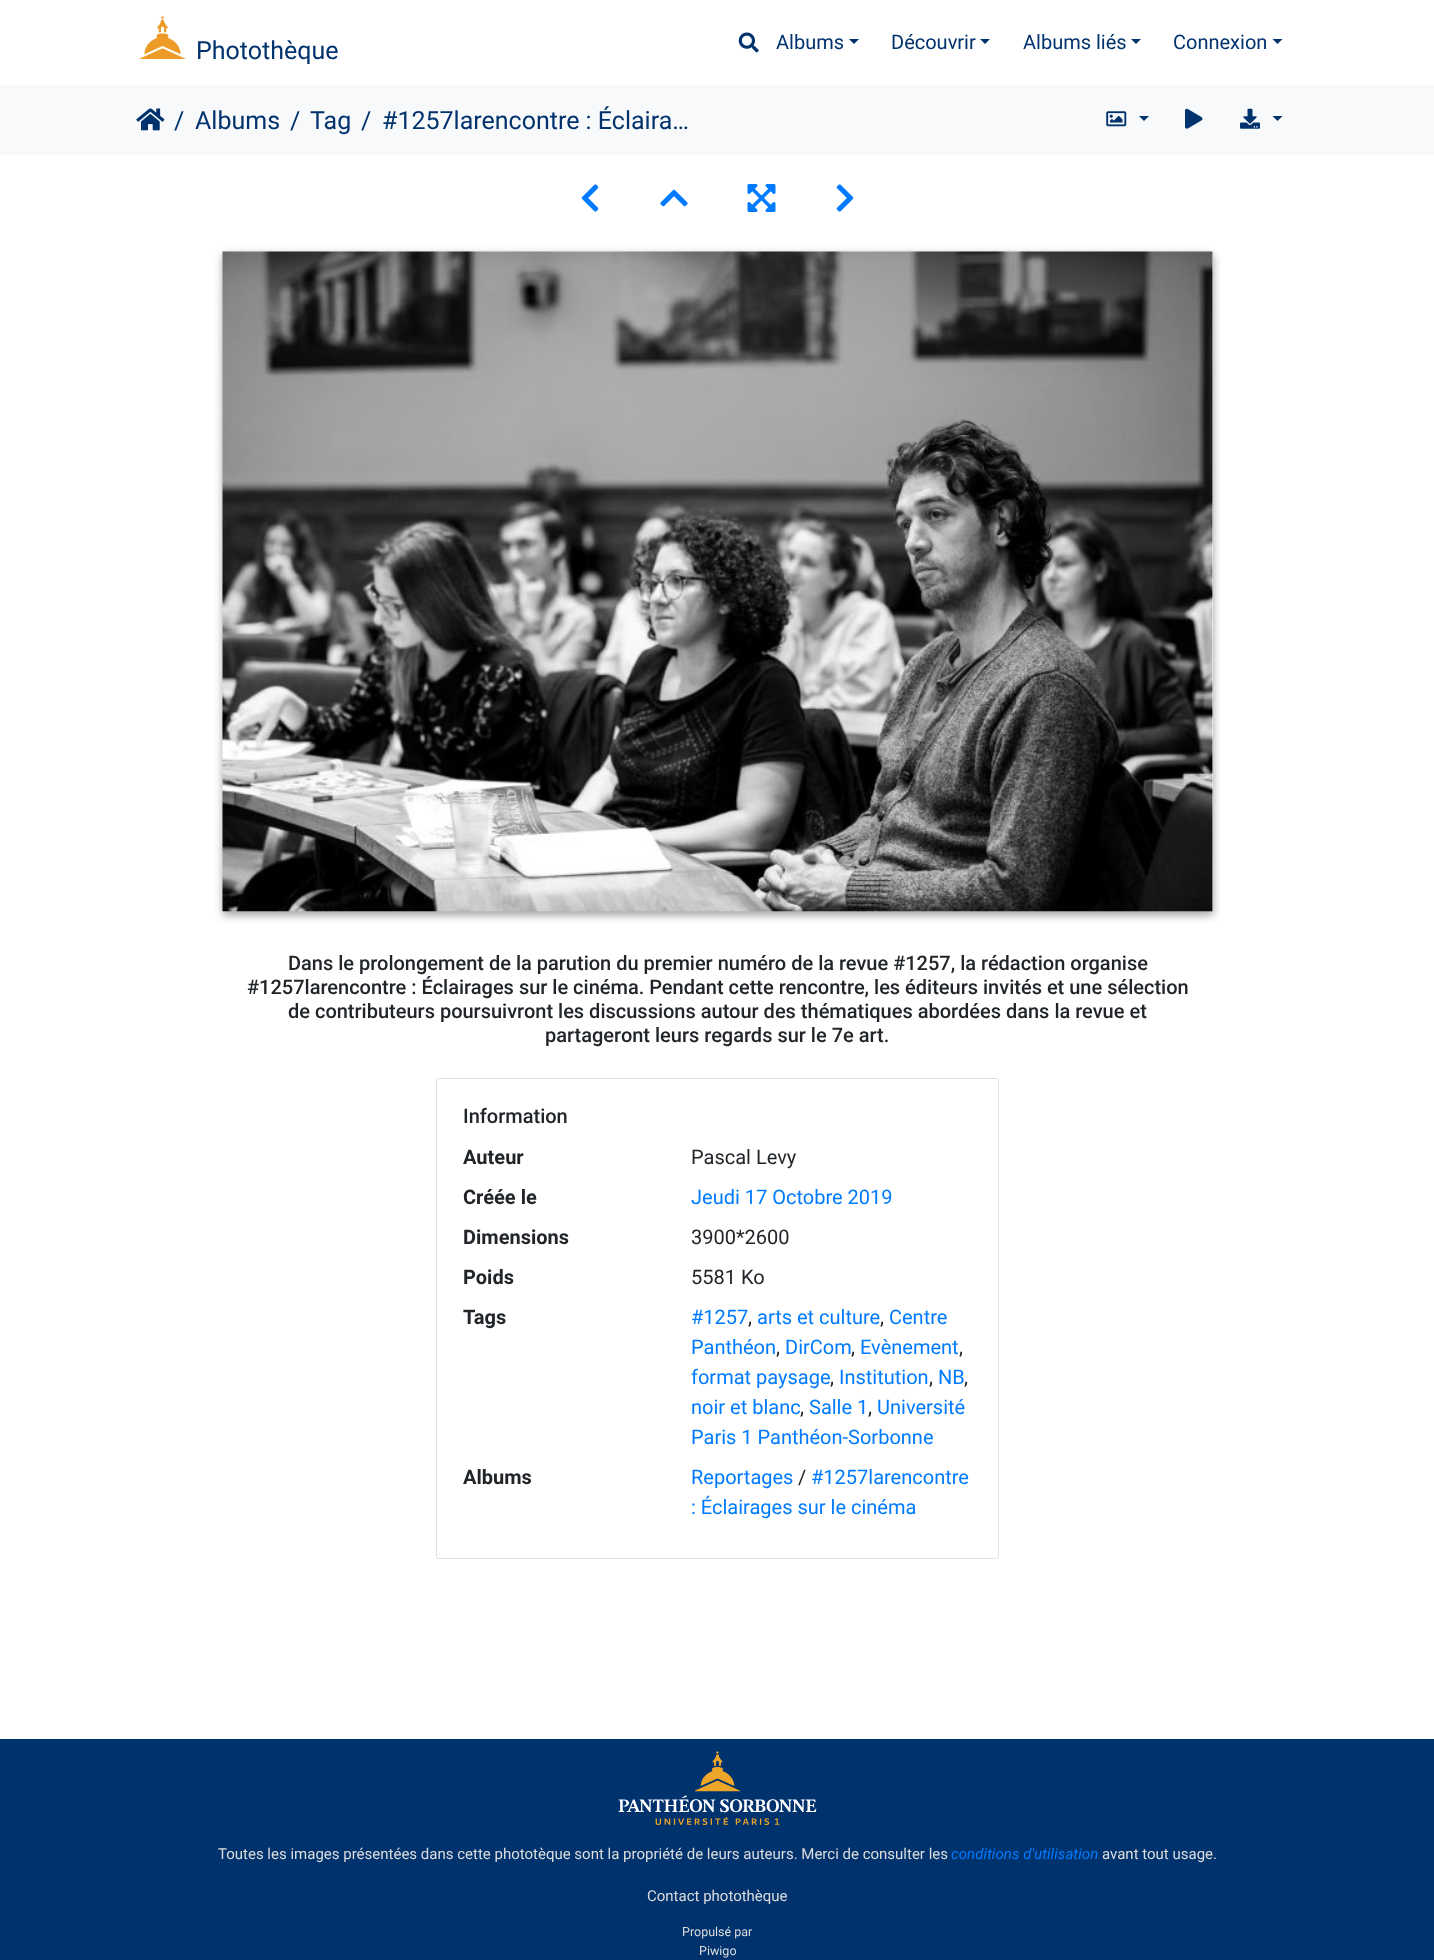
<!DOCTYPE html>
<meta charset="utf-8">
<style>body { margin: 0 } canvas { display: block }</style>
<canvas id="canvas" width="1434" height="1960"></canvas>
<script type="module">
  const canvas = document.getElementById("canvas");
  const ctx = canvas.getContext("2d");
  ctx.miterLimit = 4;
  ctx.fontKerning = "normal";
  async function loadImage(src) {
    const img = new Image();
    img.src = src;
    await img.decode();
    return img;
  }

  ctx.fillStyle = "#ffffff";
  ctx.fillRect(0, 0, 1434, 1960);
  ctx.drawImage(await loadImage("img1.png"), 139, 16, 47, 43);
  ctx.font = "25px Roboto";
  ctx.fillStyle = "#00326e";
  ctx.fillText("Photothèque", 196, 59);
  ctx.drawImage(await loadImage("img2.png"), 738, 32, 21, 21);
  ctx.font = "20px Roboto";
  ctx.fillText("Albums", 776, 49);
  ctx.beginPath();
  ctx.moveTo(849, 39);
  ctx.lineTo(859, 39);
  ctx.lineTo(854, 44);
  ctx.closePath();
  ctx.fill();
  ctx.fillText("Découvrir", 891, 49);
  ctx.beginPath();
  ctx.moveTo(980, 39);
  ctx.lineTo(990, 39);
  ctx.lineTo(985, 44);
  ctx.closePath();
  ctx.fill();
  ctx.fillText("Albums liés", 1023, 49);
  ctx.beginPath();
  ctx.moveTo(1131, 39);
  ctx.lineTo(1141, 39);
  ctx.lineTo(1136, 44);
  ctx.closePath();
  ctx.fill();
  ctx.fillText("Connexion", 1173, 49);
  ctx.beginPath();
  ctx.moveTo(1272.5, 39);
  ctx.lineTo(1282.5, 39);
  ctx.lineTo(1277.5, 44);
  ctx.closePath();
  ctx.fill();
  ctx.fillStyle = "#f8f9fa";
  ctx.fillRect(0, 85, 1434, 70);
  ctx.drawImage(await loadImage("img3.png"), 136, 108, 29, 23);
  ctx.font = "25px Roboto";
  ctx.fillStyle = "#00326e";
  ctx.fillText("/", 174, 129);
  ctx.fillText("Albums", 195, 129);
  ctx.fillText("/", 290, 129);
  ctx.fillText("Tag", 310, 129);
  ctx.fillText("/", 361, 129);
  ctx.fillText("#1257larencontre : Éclaira…", 382, 129);
  ctx.drawImage(await loadImage("img4.png"), 1106, 111, 21, 16);
  ctx.beginPath();
  ctx.moveTo(1139, 116);
  ctx.lineTo(1149, 116);
  ctx.lineTo(1144, 121);
  ctx.closePath();
  ctx.fill();
  ctx.drawImage(await loadImage("img5.png"), 1185, 108, 18, 21);
  ctx.drawImage(await loadImage("img6.png"), 1240, 108, 20, 21);
  ctx.beginPath();
  ctx.moveTo(1272.5, 116);
  ctx.lineTo(1282.5, 116);
  ctx.lineTo(1277.5, 121);
  ctx.closePath();
  ctx.fill();
  ctx.drawImage(await loadImage("img7.png"), 581, 184, 18, 28);
  ctx.drawImage(await loadImage("img8.png"), 660, 189, 28, 18);
  ctx.drawImage(await loadImage("img9.png"), 747, 184, 29, 28);
  ctx.drawImage(await loadImage("img10.png"), 836, 184, 18, 28);
  ctx.save();
  ctx.beginPath();
  ctx.moveTo(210, 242);
  ctx.lineTo(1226, 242);
  ctx.lineTo(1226, 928);
  ctx.lineTo(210, 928);
  ctx.closePath();
  ctx.moveTo(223, 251);
  ctx.lineTo(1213, 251);
  ctx.lineTo(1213, 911);
  ctx.lineTo(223, 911);
  ctx.closePath();
  ctx.clip("evenodd");
  ctx.fillStyle = "rgba(0, 0, 0, 0.23)";
  ctx.filter = "blur(4px)";
  ctx.beginPath();
  ctx.rect(223, 255, 990, 660);
  ctx.fill();
  ctx.filter = "none";
  ctx.fillStyle = "rgba(0, 0, 0, 0.16)";
  ctx.filter = "blur(4px)";
  ctx.beginPath();
  ctx.rect(223, 255, 990, 660);
  ctx.fill();
  ctx.filter = "none";
  ctx.restore();
  ctx.drawImage(await loadImage("img11.png"), 222, 251, 991, 661);
  ctx.font = "500 20px Roboto";
  ctx.fillStyle = "#212529";
  ctx.fillText("Dans le prolongement de la parution du premier numéro de la revue #1257, la rédaction organise", 288, 970);
  ctx.fillText("#1257larencontre : Éclairages sur le cinéma. Pendant cette rencontre, les éditeurs invités et une sélection", 247, 994);
  ctx.fillText("de contributeurs poursuivront les discussions autour des thématiques abordées dans la revue et", 288, 1018);
  ctx.fillText("partageront leurs regards sur le 7e art.", 545, 1042);
  ctx.beginPath();
  ctx.roundRect(436.5, 1078.5, 562, 480, 2);
  ctx.strokeStyle = "#dfdfdf";
  ctx.stroke();
  ctx.fillText("Information", 463, 1123);
  ctx.font = "bold 20px Roboto";
  ctx.fillText("Auteur", 463, 1164);
  ctx.font = "20px Roboto";
  ctx.fillText("Pascal Levy", 691, 1164);
  ctx.font = "bold 20px Roboto";
  ctx.fillText("Créée le", 463, 1204);
  ctx.font = "20px Roboto";
  ctx.fillStyle = "#007bff";
  ctx.fillText("Jeudi 17 Octobre 2019", 691, 1204);
  ctx.font = "bold 20px Roboto";
  ctx.fillStyle = "#212529";
  ctx.fillText("Dimensions", 463, 1244);
  ctx.font = "20px Roboto";
  ctx.fillText("3900*2600", 691, 1244);
  ctx.font = "bold 20px Roboto";
  ctx.fillText("Poids", 463, 1284);
  ctx.font = "20px Roboto";
  ctx.fillText("5581 Ko", 691, 1284);
  ctx.font = "bold 20px Roboto";
  ctx.fillText("Tags", 463, 1324);
  ctx.font = "20px Roboto";
  ctx.fillStyle = "#007bff";
  ctx.fillText("#1257", 691, 1324);
  ctx.fillStyle = "#212529";
  ctx.fillText(",", 748, 1324);
  ctx.fillStyle = "#007bff";
  ctx.fillText("arts et culture", 757, 1324);
  ctx.fillStyle = "#212529";
  ctx.fillText(",", 880, 1324);
  ctx.fillStyle = "#007bff";
  ctx.fillText("Centre", 889, 1324);
  ctx.fillText("Panthéon", 691, 1354);
  ctx.fillStyle = "#212529";
  ctx.fillText(",", 776, 1354);
  ctx.fillStyle = "#007bff";
  ctx.fillText("DirCom", 785, 1354);
  ctx.fillStyle = "#212529";
  ctx.fillText(",", 851, 1354);
  ctx.fillStyle = "#007bff";
  ctx.fillText("Evènement", 860, 1354);
  ctx.fillStyle = "#212529";
  ctx.fillText(",", 959, 1354);
  ctx.fillStyle = "#007bff";
  ctx.fillText("format paysage", 691, 1384);
  ctx.fillStyle = "#212529";
  ctx.fillText(",", 830, 1384);
  ctx.fillStyle = "#007bff";
  ctx.fillText("Institution", 839, 1384);
  ctx.fillStyle = "#212529";
  ctx.fillText(",", 929, 1384);
  ctx.fillStyle = "#007bff";
  ctx.fillText("NB", 938, 1384);
  ctx.fillStyle = "#212529";
  ctx.fillText(",", 964, 1384);
  ctx.fillStyle = "#007bff";
  ctx.fillText("noir et blanc", 691, 1414);
  ctx.fillStyle = "#212529";
  ctx.fillText(",", 800, 1414);
  ctx.fillStyle = "#007bff";
  ctx.fillText("Salle 1", 809, 1414);
  ctx.fillStyle = "#212529";
  ctx.fillText(",", 868, 1414);
  ctx.fillStyle = "#007bff";
  ctx.fillText("Université", 877, 1414);
  ctx.fillText("Paris 1 Panthéon-Sorbonne", 691, 1444);
  ctx.font = "bold 20px Roboto";
  ctx.fillStyle = "#212529";
  ctx.fillText("Albums", 463, 1484);
  ctx.font = "20px Roboto";
  ctx.fillStyle = "#007bff";
  ctx.fillText("Reportages", 691, 1484);
  ctx.fillStyle = "#212529";
  ctx.fillText("/", 798, 1484);
  ctx.fillStyle = "#007bff";
  ctx.fillText("#1257larencontre", 811, 1484);
  ctx.fillText(": Éclairages sur le cinéma", 691, 1514);
  ctx.fillStyle = "#00326e";
  ctx.fillRect(0, 1739, 1434, 221);
  ctx.drawImage(await loadImage("img12.png"), 618, 1751, 199, 74);
  ctx.font = "15px Roboto";
  ctx.fillStyle = "#dddddd";
  ctx.fillText("Toutes les images présentées dans cette phototèque sont la propriété de leurs auteurs. Merci de consulter les", 218, 1859);
  ctx.font = "italic 15px Roboto";
  ctx.fillStyle = "#007bff";
  ctx.fillText("conditions d'utilisation", 951, 1859);
  ctx.font = "15px Roboto";
  ctx.fillStyle = "#dddddd";
  ctx.fillText("avant tout usage.", 1102, 1859);
  ctx.fillText("Contact photothèque", 647, 1901);
  ctx.font = "12.5px Roboto";
  ctx.fillText("Propulsé par", 682, 1936);
  ctx.fillText("Piwigo", 699, 1955);
</script>
